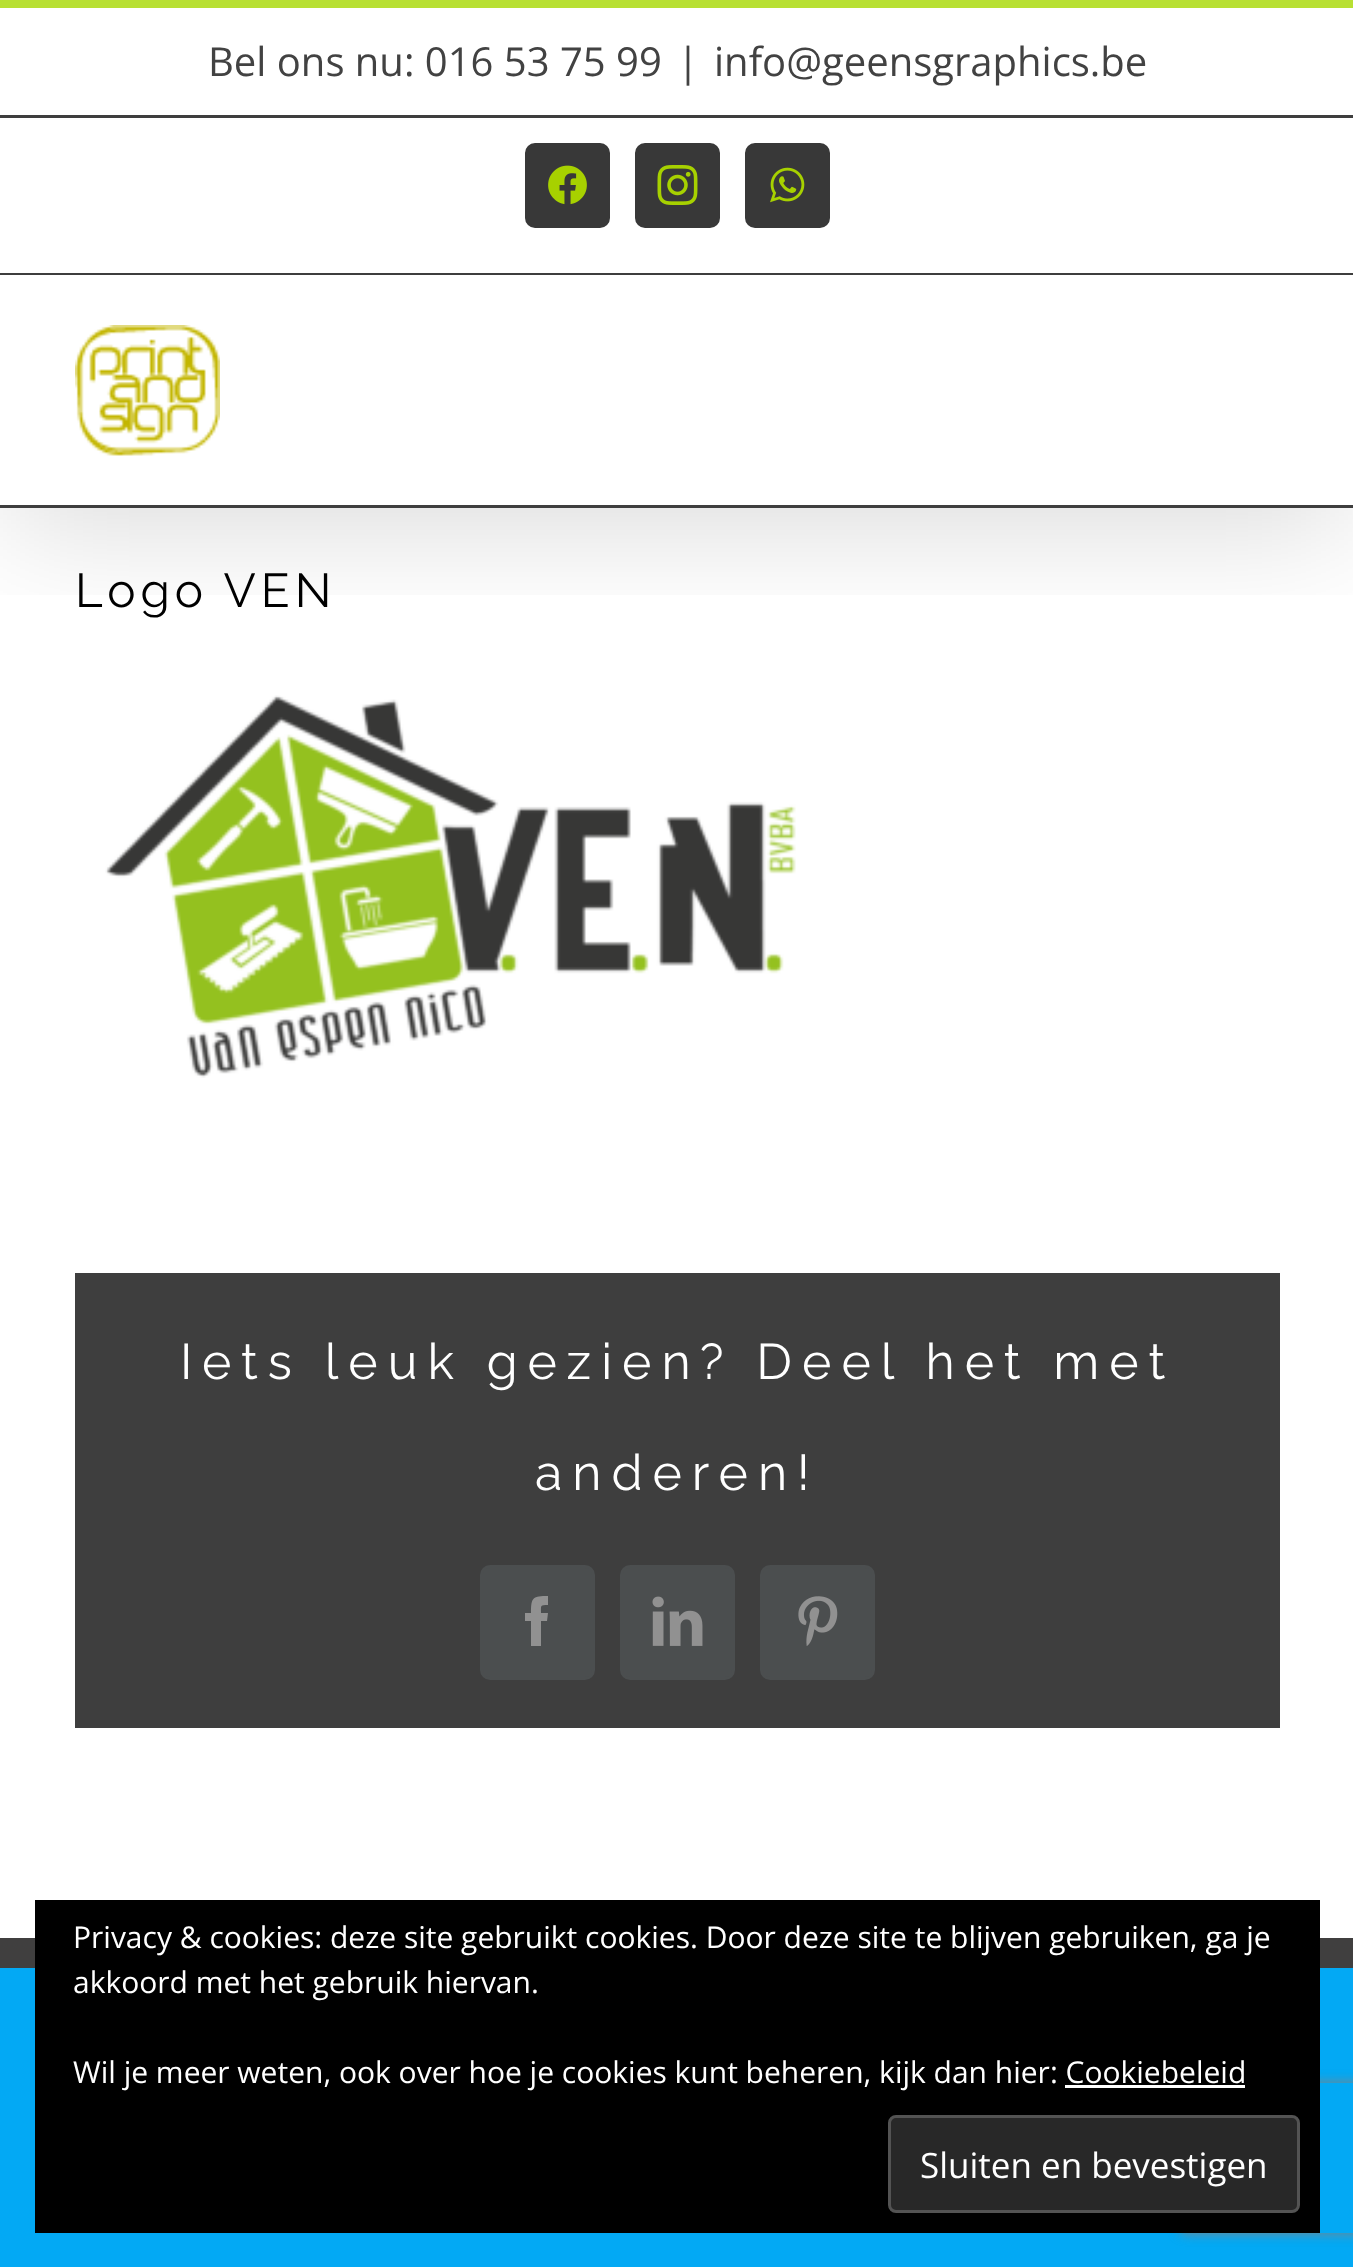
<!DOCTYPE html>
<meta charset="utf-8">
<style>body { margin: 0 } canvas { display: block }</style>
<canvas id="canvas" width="1353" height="2267"></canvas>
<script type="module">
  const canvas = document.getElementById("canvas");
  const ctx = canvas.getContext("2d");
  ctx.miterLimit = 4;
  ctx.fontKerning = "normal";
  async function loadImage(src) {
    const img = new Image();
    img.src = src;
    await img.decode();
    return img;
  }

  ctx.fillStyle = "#ffffff";
  ctx.fillRect(0, 0, 1353, 2267);
  ctx.drawImage(await loadImage("img5.png"), 105, 695, 691, 383);
  ctx.save();
  ctx.beginPath();
  ctx.rect(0, 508, 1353, 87);
  ctx.clip();
  ctx.fillStyle = "rgba(0, 0, 0, 0.14)";
  ctx.filter = "blur(62.5px)";
  ctx.beginPath();
  ctx.rect(5, 30, 1345, 498);
  ctx.fill();
  ctx.filter = "none";
  ctx.restore();
  ctx.fillStyle = "#b8e033";
  ctx.fillRect(0, 0, 1353, 8);
  ctx.fillStyle = "#3e3e3e";
  ctx.fillRect(0, 273, 1353, 2);
  ctx.fillRect(0, 115, 1353, 3);
  ctx.font = "40px Open Sans";
  ctx.fillStyle = "#424242";
  ctx.fillText("Bel ons nu: 016 53 75 99", 208, 76);
  ctx.fillText("|", 677, 76);
  ctx.fillText("info@geensgraphics.be", 714, 76);
  ctx.fillStyle = "#383838";
  ctx.beginPath();
  ctx.roundRect(526.5, 144.5, 82, 82, 8.5);
  ctx.fill();
  ctx.strokeStyle = "#383838";
  ctx.lineWidth = 3;
  ctx.stroke();
  ctx.drawImage(await loadImage("img1.png"), 548, 165, 39, 40);
  ctx.beginPath();
  ctx.roundRect(636.5, 144.5, 82, 82, 8.5);
  ctx.fill();
  ctx.stroke();
  ctx.drawImage(await loadImage("img2.png"), 657, 165, 41, 40);
  ctx.beginPath();
  ctx.roundRect(746.5, 144.5, 82, 82, 8.5);
  ctx.fill();
  ctx.stroke();
  ctx.drawImage(await loadImage("img3.png"), 770, 167, 35, 36);
  ctx.fillStyle = "#3e3e3e";
  ctx.fillRect(0, 505, 1353, 3);
  ctx.drawImage(await loadImage("img4.png"), 75, 325, 145, 131);
  ctx.letterSpacing = "5px";
  ctx.font = "47.5px Raleway";
  ctx.fillStyle = "#000000";
  ctx.fillText("Logo VEN", 75, 607);
  ctx.fillStyle = "#3e3e3e";
  ctx.fillRect(75, 1273, 1205, 455);
  ctx.letterSpacing = "10px";
  ctx.font = "50px Raleway";
  ctx.fillStyle = "#ffffff";
  ctx.fillText("Iets leuk gezien? Deel het met", 180, 1379);
  ctx.fillText("anderen!", 535, 1490);
  ctx.fillStyle = "#4b4e4f";
  ctx.beginPath();
  ctx.roundRect(481.5, 1566.5, 112, 112, 8.5);
  ctx.fill();
  ctx.strokeStyle = "#4b4e4f";
  ctx.stroke();
  ctx.fillStyle = "#919191";
  ctx.beginPath();
  ctx.moveTo(541, 1646);
  ctx.lineTo(531, 1646);
  ctx.lineTo(531, 1621);
  ctx.lineTo(525, 1621);
  ctx.lineTo(525, 1613);
  ctx.lineTo(531, 1613);
  ctx.bezierCurveTo(531, 1597, 533, 1596, 548, 1596);
  ctx.lineTo(548, 1605);
  ctx.bezierCurveTo(540, 1605, 541, 1605, 541, 1613);
  ctx.lineTo(548, 1613);
  ctx.lineTo(547, 1621);
  ctx.lineTo(541, 1621);
  ctx.closePath();
  ctx.fill();
  ctx.fillStyle = "#4b4e4f";
  ctx.beginPath();
  ctx.roundRect(621.5, 1566.5, 112, 112, 8.5);
  ctx.fill();
  ctx.stroke();
  ctx.drawImage(await loadImage("img6.png"), 652, 1596, 51, 50);
  ctx.beginPath();
  ctx.roundRect(761.5, 1566.5, 112, 112, 8.5);
  ctx.fill();
  ctx.stroke();
  ctx.drawImage(await loadImage("img7.png"), 798, 1596, 40, 50);
  ctx.fillStyle = "#03a9f4";
  ctx.fillRect(0, 1968, 1353, 299);
  ctx.fillStyle = "#403f3f";
  ctx.fillRect(0, 1938, 1353, 30);
  ctx.save();
  ctx.beginPath();
  ctx.moveTo(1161, 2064);
  ctx.lineTo(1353, 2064);
  ctx.lineTo(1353, 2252);
  ctx.lineTo(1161, 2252);
  ctx.closePath();
  ctx.moveTo(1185, 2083);
  ctx.lineTo(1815, 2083);
  ctx.bezierCurveTo(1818, 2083, 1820, 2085, 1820, 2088);
  ctx.lineTo(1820, 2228);
  ctx.bezierCurveTo(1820, 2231, 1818, 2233, 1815, 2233);
  ctx.lineTo(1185, 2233);
  ctx.bezierCurveTo(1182, 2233, 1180, 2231, 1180, 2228);
  ctx.lineTo(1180, 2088);
  ctx.bezierCurveTo(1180, 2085, 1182, 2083, 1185, 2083);
  ctx.closePath();
  ctx.clip("evenodd");
  ctx.fillStyle = "#808080";
  ctx.filter = "blur(6px)";
  ctx.beginPath();
  ctx.roundRect(1180, 2083, 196, 150, 5);
  ctx.fill();
  ctx.filter = "none";
  ctx.restore();
  ctx.fillStyle = "#000000";
  ctx.fillRect(35, 1900, 1285, 333);
  ctx.letterSpacing = "0px";
  ctx.font = "30px Open Sans";
  ctx.fillStyle = "#ffffff";
  ctx.fillText("Privacy & cookies: deze site gebruikt cookies. Door deze site te blijven gebruiken, ga je", 73, 1948);
  ctx.fillText("akkoord met het gebruik hiervan.", 73, 1993);
  ctx.fillText("Wil je meer weten, ook over hoe je cookies kunt beheren, kijk dan hier: Cookiebeleid", 73, 2083);
  ctx.fillRect(1065, 2085, 180, 3);
  ctx.fillStyle = "#282828";
  ctx.beginPath();
  ctx.roundRect(889.5, 2116.5, 409, 95, 6.5);
  ctx.fill();
  ctx.strokeStyle = "#535353";
  ctx.stroke();
  ctx.font = "35px Open Sans";
  ctx.fillStyle = "#ffffff";
  ctx.fillText("Sluiten en bevestigen", 920, 2178);
</script>
